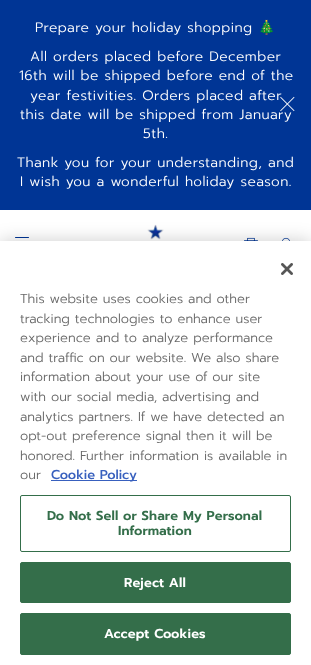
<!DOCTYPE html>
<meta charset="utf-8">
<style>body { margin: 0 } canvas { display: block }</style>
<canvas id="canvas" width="311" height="665"></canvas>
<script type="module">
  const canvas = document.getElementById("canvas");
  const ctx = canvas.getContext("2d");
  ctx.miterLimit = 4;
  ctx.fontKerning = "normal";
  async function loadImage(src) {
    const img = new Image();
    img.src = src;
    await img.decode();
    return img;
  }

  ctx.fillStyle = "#ffffff";
  ctx.fillRect(0, 0, 311, 665);
  ctx.fillStyle = "#003595";
  ctx.fillRect(0, 0, 311, 210);
  ctx.letterSpacing = "0.45px";
  ctx.font = "300 13.75px Prompt";
  ctx.fillStyle = "#ffffff";
  ctx.fillText("Prepare your holiday shopping", 35, 32);
  ctx.font = "13.75px Noto Color Emoji";
  ctx.fillText("🎄", 258, 32);
  ctx.font = "300 13.75px Prompt";
  ctx.fillText("All orders placed before December", 30, 61);
  ctx.fillText("16th will be shipped before end of the", 19, 80);
  ctx.fillText("year festivities. Orders placed after", 30, 100);
  ctx.fillText("this date will be shipped from January", 20, 119);
  ctx.fillText("5th.", 143, 138);
  ctx.fillText("Thank you for your understanding, and", 17, 167);
  ctx.fillText("I wish you a wonderful holiday season.", 20, 186);
  ctx.drawImage(await loadImage("img1.png"), 280, 96, 15, 16);
  ctx.fillStyle = "#003595";
  ctx.beginPath();
  ctx.roundRect(15, 237, 14, 1, 0.5);
  ctx.fill();
  ctx.drawImage(await loadImage("img2.png"), 147, 224, 17, 16);
  ctx.drawImage(await loadImage("img3.png"), 244, 237, 14, 4);
  ctx.drawImage(await loadImage("img4.png"), 282, 237, 8, 4);
  ctx.fillStyle = "rgba(0, 0, 0, 0.2)";
  ctx.filter = "blur(9px)";
  ctx.beginPath();
  ctx.rect(0, 241, 311, 424);
  ctx.fill();
  ctx.filter = "none";
  ctx.fillStyle = "#ffffff";
  ctx.fillRect(0, 241, 311, 424);
  ctx.drawImage(await loadImage("img5.png"), 281, 263, 12, 12);
  ctx.letterSpacing = "0px";
  ctx.font = "300 13px Prompt";
  ctx.fillStyle = "#696969";
  ctx.fillText("This website uses cookies and other", 20, 303);
  ctx.fillText("tracking technologies to enhance user", 20, 323);
  ctx.fillText("experience and to analyze performance", 20, 342);
  ctx.fillText("and traffic on our website. We also share", 20, 362);
  ctx.fillText("information about your use of our site", 20, 381);
  ctx.fillText("with our social media, advertising and", 20, 401);
  ctx.fillText("analytics partners. If we have detected an", 20, 421);
  ctx.fillText("opt-out preference signal then it will be", 20, 440);
  ctx.fillText("honored. Further information is available in", 20, 460);
  ctx.fillText("our", 20, 479);
  ctx.fillStyle = "#3860be";
  ctx.fillRect(51, 480, 86, 1);
  ctx.font = "500 13px Prompt";
  ctx.fillText("Cookie Policy", 51, 479);
  ctx.beginPath();
  ctx.roundRect(20.5, 495.5, 270, 56, 1.5);
  ctx.strokeStyle = "#346e4a";
  ctx.stroke();
  ctx.letterSpacing = "0.1px";
  ctx.font = "600 13px Prompt";
  ctx.fillStyle = "#346e4a";
  ctx.fillText("Do Not Sell or Share My Personal", 47, 520);
  ctx.fillText("Information", 118, 535);
  ctx.beginPath();
  ctx.roundRect(20.5, 562.5, 270, 40, 1.5);
  ctx.fill();
  ctx.stroke();
  ctx.fillStyle = "#ffffff";
  ctx.fillText("Reject All", 124, 587);
  ctx.fillStyle = "#346e4a";
  ctx.beginPath();
  ctx.roundRect(20.5, 613.5, 270, 41, 1.5);
  ctx.fill();
  ctx.stroke();
  ctx.fillStyle = "#ffffff";
  ctx.fillText("Accept Cookies", 104, 638);
</script>
